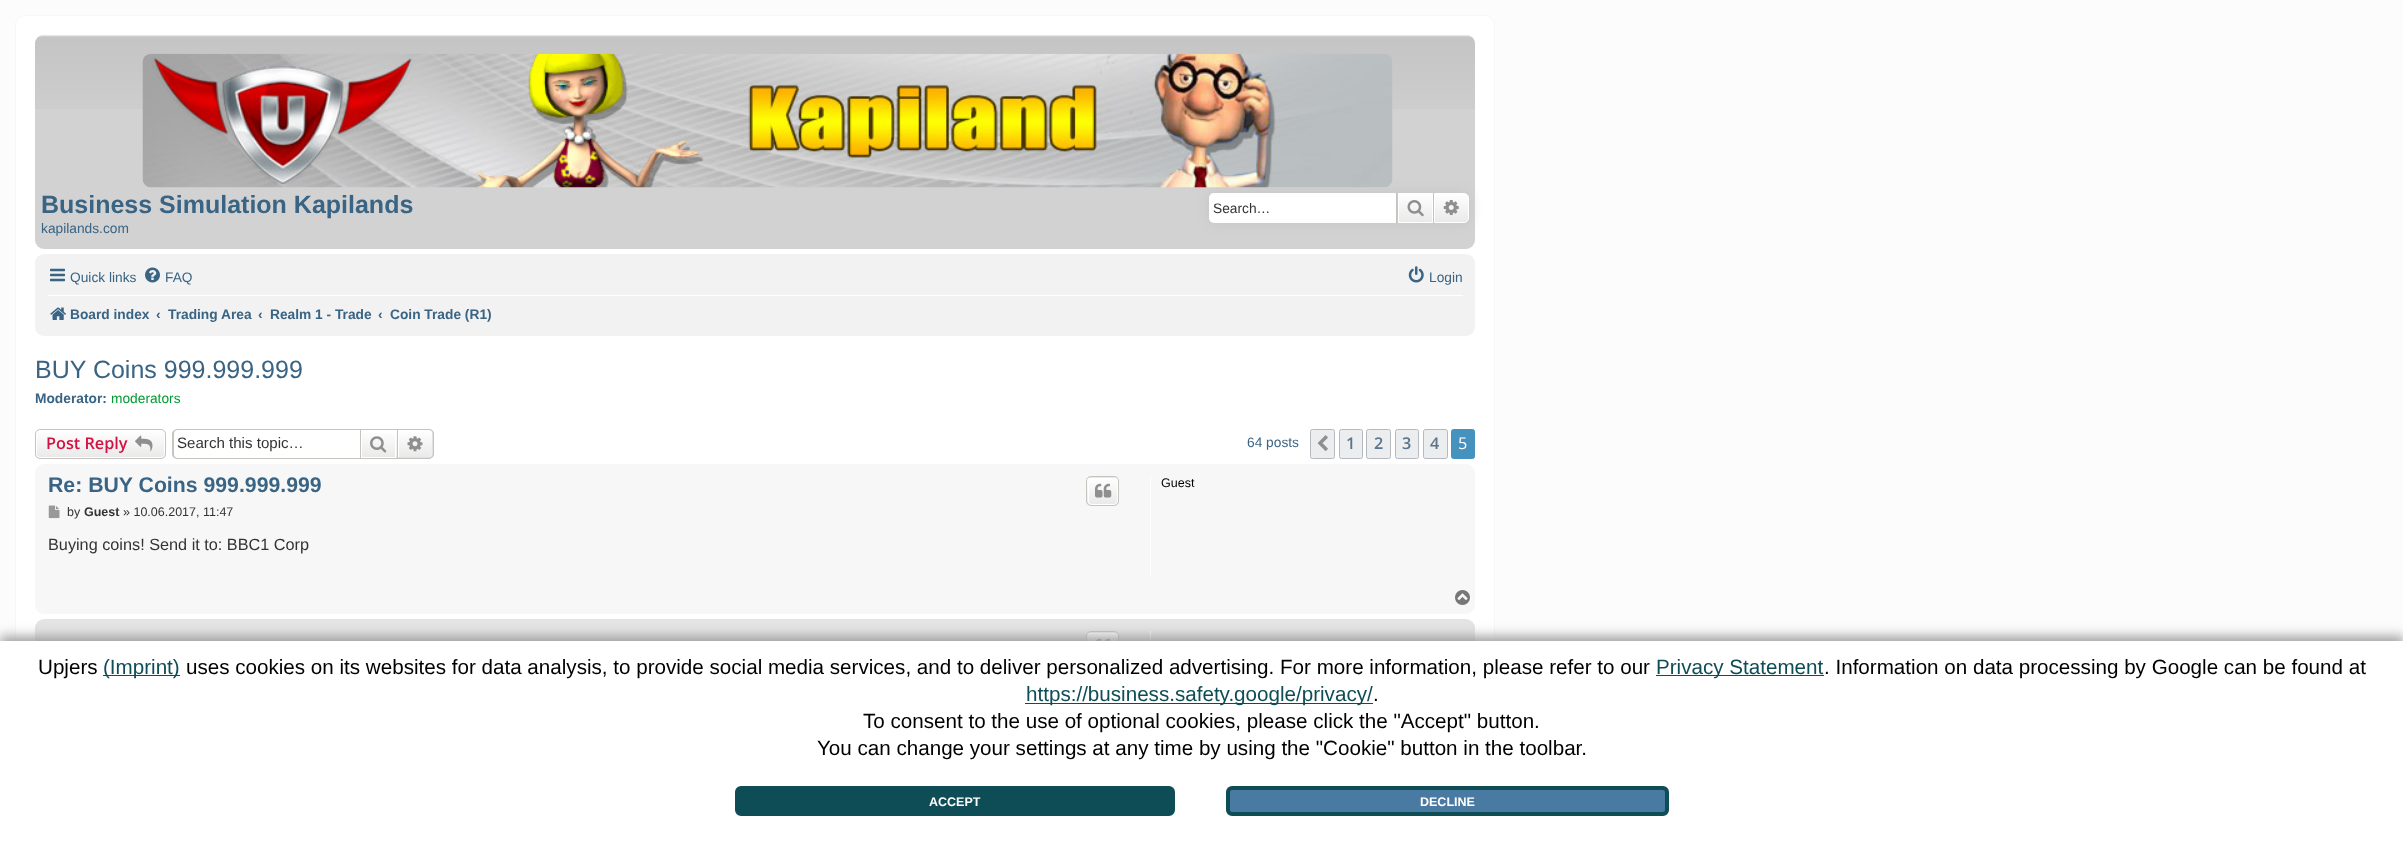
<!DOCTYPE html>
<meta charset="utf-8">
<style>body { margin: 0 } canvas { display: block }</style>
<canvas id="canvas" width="2403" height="841"></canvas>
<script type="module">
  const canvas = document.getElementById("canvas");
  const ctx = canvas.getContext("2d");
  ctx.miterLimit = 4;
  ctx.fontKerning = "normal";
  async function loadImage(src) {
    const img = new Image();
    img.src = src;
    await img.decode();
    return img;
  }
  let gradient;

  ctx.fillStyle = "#fcfcfc";
  ctx.fillRect(0, 0, 2403, 841);
  ctx.fillStyle = "#ffffff";
  ctx.beginPath();
  ctx.roundRect(15.5, 15.5, 1479, 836, 9.5);
  ctx.fill();
  ctx.strokeStyle = "#f7f7f7";
  ctx.stroke();
  ctx.fillStyle = "#d2d2d2";
  ctx.beginPath();
  ctx.roundRect(35, 35, 1440, 214, 9);
  ctx.fill();
  ctx.drawImage(await loadImage("img1.png"), 35, 35, 1440, 74);
  ctx.fillStyle = "#c5c5c5";
  ctx.filter = "blur(6px)";
  ctx.beginPath();
  ctx.roundRect(1209, 193, 260, 30, 5);
  ctx.fill();
  ctx.filter = "none";
  ctx.drawImage(await loadImage("img2.png"), 142, 53, 1251, 135);
  ctx.font = "bold 25px Liberation Sans";
  ctx.fillStyle = "#3a6484";
  ctx.fillText("Business Simulation Kapilands", 41, 213);
  ctx.font = "13.75px Liberation Sans";
  ctx.fillText("kapilands.com", 41, 233);
  ctx.fillStyle = "#ffffff";
  ctx.beginPath();
  ctx.roundRect(1209, 193, 187, 30, [5, 0, 0, 5]);
  ctx.fill();
  ctx.fillStyle = "#333333";
  ctx.fillText("Search…", 1213, 213);
  gradient = ctx.createLinearGradient(1415, 193, 1415, 223);
  gradient.addColorStop(0, "#ffffff");
  gradient.addColorStop(1, "#e9e9e9");
  ctx.fillStyle = gradient;
  ctx.fillRect(1399, 194, 33, 28);
  ctx.strokeStyle = "#ffffff";
  ctx.strokeRect(1398.5, 193.5, 34, 29);
  ctx.fillStyle = "#c7c3bf";
  ctx.fillRect(1433, 193, 1, 30);
  ctx.fillRect(1396, 193, 1, 30);
  ctx.drawImage(await loadImage("img3.png"), 1407, 200, 17, 17);
  gradient = ctx.createLinearGradient(1451, 193, 1451, 223);
  gradient.addColorStop(0, "#ffffff");
  gradient.addColorStop(1, "#e9e9e9");
  ctx.fillStyle = gradient;
  ctx.beginPath();
  ctx.roundRect(1434.5, 193.5, 34, 29, [0, 4.5, 4.5, 0]);
  ctx.fill();
  ctx.stroke();
  ctx.drawImage(await loadImage("img4.png"), 1443, 200, 16, 15);
  ctx.fillStyle = "#f2f2f2";
  ctx.beginPath();
  ctx.roundRect(35, 254, 1440, 82, 9);
  ctx.fill();
  ctx.drawImage(await loadImage("img5.png"), 50, 268, 15, 14);
  ctx.fillStyle = "#3a6484";
  ctx.fillText("Quick links", 70, 282);
  ctx.drawImage(await loadImage("img6.png"), 145, 267, 15, 16);
  ctx.fillText("FAQ", 165, 282);
  ctx.drawImage(await loadImage("img7.png"), 1408, 266, 16, 17);
  ctx.fillText("Login", 1429, 282);
  ctx.fillStyle = "#ffffff";
  ctx.fillRect(48, 295, 1415, 1);
  ctx.drawImage(await loadImage("img8.png"), 50, 307, 16, 13);
  ctx.font = "bold 13.75px Liberation Sans";
  ctx.fillStyle = "#3a6484";
  ctx.fillText("Board index", 70, 319);
  ctx.fillText("‹", 156, 319);
  ctx.fillText("Trading Area", 168, 319);
  ctx.fillText("‹", 258, 319);
  ctx.fillText("Realm 1 - Trade", 270, 319);
  ctx.fillText("‹", 378, 319);
  ctx.fillText("Coin Trade (R1)", 390, 319);
  ctx.font = "25px Liberation Sans";
  ctx.fillText("BUY Coins 999.999.999", 35, 378);
  ctx.font = "bold 13.75px Liberation Sans";
  ctx.fillText("Moderator:", 35, 403);
  ctx.font = "13.75px Liberation Sans";
  ctx.fillStyle = "#009933";
  ctx.fillText("moderators", 111, 403);
  ctx.save();
  ctx.beginPath();
  ctx.roundRect(35, 429, 131, 30, 5);
  ctx.clip();
  gradient = ctx.createLinearGradient(101, 430, 101, 458);
  gradient.addColorStop(0, "#ffffff");
  gradient.addColorStop(1, "#e9e9e9");
  ctx.fillStyle = gradient;
  ctx.fillRect(35, 430, 131, 28);
  ctx.restore();
  ctx.beginPath();
  ctx.roundRect(36.5, 430.5, 128, 27, 3.5);
  ctx.stroke();
  ctx.beginPath();
  ctx.roundRect(35.5, 429.5, 130, 29, 4.5);
  ctx.strokeStyle = "#c7c3bf";
  ctx.stroke();
  ctx.font = "600 16.25px Open Sans";
  ctx.fillStyle = "#d31141";
  ctx.fillText("Post Reply", 46, 449);
  ctx.drawImage(await loadImage("img9.png"), 135, 435, 18, 17);
  ctx.fillStyle = "#c7c3bf";
  ctx.beginPath();
  ctx.moveTo(178, 429);
  ctx.lineTo(360, 429);
  ctx.lineTo(360, 459);
  ctx.lineTo(178, 459);
  ctx.bezierCurveTo(175, 459, 172, 457, 172, 454);
  ctx.lineTo(172, 434);
  ctx.bezierCurveTo(172, 431, 175, 429, 178, 429);
  ctx.closePath();
  ctx.moveTo(178, 430);
  ctx.lineTo(360, 430);
  ctx.lineTo(360, 458);
  ctx.lineTo(178, 458);
  ctx.bezierCurveTo(175, 458, 174, 456, 174, 454);
  ctx.lineTo(174, 434);
  ctx.bezierCurveTo(174, 432, 175, 430, 178, 430);
  ctx.closePath();
  ctx.fill("evenodd");
  ctx.font = "15.1px Liberation Sans";
  ctx.fillStyle = "#333333";
  ctx.fillText("Search this topic…", 177, 448);
  gradient = ctx.createLinearGradient(379, 430, 379, 458);
  gradient.addColorStop(0, "#ffffff");
  gradient.addColorStop(1, "#e9e9e9");
  ctx.fillStyle = gradient;
  ctx.fillRect(362, 433, 35, 25);
  ctx.strokeStyle = "#ffffff";
  ctx.strokeRect(361.5, 430.5, 34, 27);
  ctx.strokeStyle = "#c7c3bf";
  ctx.strokeRect(360.5, 429.5, 37, 29);
  ctx.drawImage(await loadImage("img10.png"), 370, 436, 17, 17);
  gradient = ctx.createLinearGradient(415, 430, 415, 458);
  gradient.addColorStop(0, "#ffffff");
  gradient.addColorStop(1, "#e9e9e9");
  ctx.fillStyle = gradient;
  ctx.beginPath();
  ctx.roundRect(398.5, 430.5, 34, 27, [0, 3.5, 3.5, 0]);
  ctx.fill();
  ctx.strokeStyle = "#ffffff";
  ctx.stroke();
  ctx.fillStyle = "#c7c3bf";
  ctx.beginPath();
  ctx.moveTo(397.5, 429);
  ctx.lineTo(429, 429);
  ctx.bezierCurveTo(431.5, 429, 434, 431, 434, 434);
  ctx.lineTo(434, 454);
  ctx.bezierCurveTo(434, 456.5, 431.5, 459, 429, 459);
  ctx.lineTo(397.5, 459);
  ctx.closePath();
  ctx.moveTo(397.5, 430);
  ctx.lineTo(429, 430);
  ctx.bezierCurveTo(431, 430, 432.5, 431.5, 432.5, 434);
  ctx.lineTo(432.5, 454);
  ctx.bezierCurveTo(432.5, 456, 431, 457.5, 429, 457.5);
  ctx.lineTo(397.5, 457.5);
  ctx.closePath();
  ctx.fill("evenodd");
  ctx.drawImage(await loadImage("img11.png"), 407, 436, 16, 16);
  ctx.font = "13.75px Liberation Sans";
  ctx.fillStyle = "#3a6484";
  ctx.fillText("64 posts", 1247, 447);
  ctx.fillStyle = "#ecedee";
  ctx.beginPath();
  ctx.roundRect(1310.5, 429.5, 24, 29, 2);
  ctx.fill();
  ctx.strokeStyle = "#b4bac0";
  ctx.stroke();
  ctx.drawImage(await loadImage("img12.png"), 1317, 435, 11, 16);
  ctx.beginPath();
  ctx.roundRect(1339.5, 429.5, 23, 29, 2);
  ctx.fill();
  ctx.stroke();
  ctx.font = "600 16.25px Open Sans";
  ctx.fillStyle = "#5c758c";
  ctx.fillText("1", 1346, 449);
  ctx.fillStyle = "#ecedee";
  ctx.beginPath();
  ctx.roundRect(1366.5, 429.5, 24, 29, 2);
  ctx.fill();
  ctx.stroke();
  ctx.fillStyle = "#5c758c";
  ctx.fillText("2", 1374, 449);
  ctx.fillStyle = "#ecedee";
  ctx.beginPath();
  ctx.roundRect(1395.5, 429.5, 23, 29, 2);
  ctx.fill();
  ctx.stroke();
  ctx.fillStyle = "#5c758c";
  ctx.fillText("3", 1402, 449);
  ctx.fillStyle = "#ecedee";
  ctx.beginPath();
  ctx.roundRect(1423.5, 429.5, 24, 29, 2);
  ctx.fill();
  ctx.stroke();
  ctx.fillStyle = "#5c758c";
  ctx.fillText("4", 1430, 449);
  ctx.fillStyle = "#4692bf";
  ctx.beginPath();
  ctx.roundRect(1451.5, 429.5, 23, 29, 2);
  ctx.fill();
  ctx.strokeStyle = "#4692bf";
  ctx.stroke();
  ctx.font = "16.25px Open Sans";
  ctx.fillStyle = "#ffffff";
  ctx.fillText("5", 1458, 449);
  ctx.fillStyle = "#f7f7f7";
  ctx.beginPath();
  ctx.roundRect(35, 464, 1440, 150, 9);
  ctx.fill();
  ctx.font = "bold 21.25px Liberation Sans";
  ctx.fillStyle = "#3a6484";
  ctx.fillText("Re: BUY Coins 999.999.999", 48, 492);
  ctx.save();
  ctx.beginPath();
  ctx.roundRect(1086, 476, 33, 30, 5);
  ctx.clip();
  gradient = ctx.createLinearGradient(1103, 450, 1103, 478);
  gradient.addColorStop(0, "#ffffff");
  gradient.addColorStop(1, "#e9e9e9");
  ctx.fillStyle = gradient;
  ctx.fillRect(1086, 476, 33, 2);
  gradient = ctx.createLinearGradient(1103, 478, 1103, 505);
  gradient.addColorStop(0, "#ffffff");
  gradient.addColorStop(1, "#e9e9e9");
  ctx.fillStyle = gradient;
  ctx.fillRect(1086, 478, 33, 27);
  ctx.restore();
  ctx.beginPath();
  ctx.roundRect(1088.5, 478.5, 29, 26, 3.5);
  ctx.strokeStyle = "#ffffff";
  ctx.stroke();
  ctx.beginPath();
  ctx.roundRect(1086.5, 476.5, 32, 29, 4.5);
  ctx.strokeStyle = "#c7c3bf";
  ctx.stroke();
  ctx.drawImage(await loadImage("img13.png"), 1095, 483, 17, 15);
  ctx.drawImage(await loadImage("img14.png"), 48, 505, 12, 14);
  ctx.font = "12.5px Liberation Sans";
  ctx.fillStyle = "#333333";
  ctx.fillText("by", 67, 516);
  ctx.font = "bold 12.5px Liberation Sans";
  ctx.fillText("Guest", 84, 516);
  ctx.font = "12.5px Liberation Sans";
  ctx.fillText("» 10.06.2017, 11:47", 123, 516);
  ctx.font = "16.25px Liberation Sans";
  ctx.fillText("Buying coins! Send it to: BBC1 Corp", 48, 550);
  ctx.fillStyle = "#ffffff";
  ctx.fillRect(1150, 476, 1, 100);
  ctx.font = "12.5px Liberation Sans";
  ctx.fillStyle = "#000000";
  ctx.fillText("Guest", 1161, 487);
  ctx.drawImage(await loadImage("img15.png"), 1455, 590, 15, 15);
  ctx.fillStyle = "#e4e4e4";
  ctx.beginPath();
  ctx.roundRect(35, 619, 1440, 150, 9);
  ctx.fill();
  ctx.save();
  ctx.beginPath();
  ctx.roundRect(1086, 631, 33, 30, 5);
  ctx.clip();
  gradient = ctx.createLinearGradient(1103, 605, 1103, 633);
  gradient.addColorStop(0, "#ffffff");
  gradient.addColorStop(1, "#e9e9e9");
  ctx.fillStyle = gradient;
  ctx.fillRect(1086, 631, 33, 2);
  gradient = ctx.createLinearGradient(1103, 633, 1103, 660);
  gradient.addColorStop(0, "#ffffff");
  gradient.addColorStop(1, "#e9e9e9");
  ctx.fillStyle = gradient;
  ctx.fillRect(1086, 633, 33, 8);
  ctx.restore();
  ctx.beginPath();
  ctx.roundRect(1088.5, 633.5, 29, 26, 3.5);
  ctx.strokeStyle = "#ffffff";
  ctx.stroke();
  ctx.beginPath();
  ctx.roundRect(1086.5, 631.5, 32, 29, 4.5);
  ctx.strokeStyle = "#c7c3bf";
  ctx.stroke();
  ctx.drawImage(await loadImage("img16.png"), 1096, 638, 14, 3);
  ctx.fillStyle = "#ffffff";
  ctx.fillRect(1150, 631, 1, 10);
  ctx.fillStyle = "#a1a1a1";
  ctx.filter = "blur(6px)";
  ctx.beginPath();
  ctx.rect(0, 636, 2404, 200);
  ctx.fill();
  ctx.filter = "none";
  ctx.fillStyle = "#ffffff";
  ctx.fillRect(0, 641, 2403, 200);
  ctx.font = "20.62px Liberation Sans";
  ctx.fillStyle = "#000000";
  ctx.fillText("Upjers", 38, 674);
  ctx.fillStyle = "#0e4d55";
  ctx.fillRect(103, 675, 77, 1);
  ctx.fillText("(Imprint)", 103, 674);
  ctx.fillStyle = "#000000";
  ctx.fillText("uses cookies on its websites for data analysis, to provide social media services, and to deliver personalized advertising. For more information, please refer to our", 186, 674);
  ctx.fillStyle = "#0e4d55";
  ctx.fillRect(1656, 675, 168, 1);
  ctx.fillText("Privacy Statement", 1656, 674);
  ctx.fillStyle = "#000000";
  ctx.fillText(". Information on data processing by Google can be found at", 1824, 674);
  ctx.fillStyle = "#0e4d55";
  ctx.fillRect(1025, 703, 348, 1);
  ctx.fillText("https://business.safety.google/privacy/", 1026, 701);
  ctx.fillStyle = "#000000";
  ctx.fillText(".", 1373, 701);
  ctx.fillText("To consent to the use of optional cookies, please click the \"Accept\" button.", 863, 728);
  ctx.fillText("You can change your settings at any time by using the \"Cookie\" button in the toolbar.", 817, 755);
  ctx.fillStyle = "#0e4d55";
  ctx.beginPath();
  ctx.roundRect(737, 788, 436, 26, 4);
  ctx.fill();
  ctx.strokeStyle = "#0e4d55";
  ctx.lineWidth = 4;
  ctx.stroke();
  ctx.font = "bold 12.5px Liberation Sans";
  ctx.fillStyle = "#ffffff";
  ctx.fillText("ACCEPT", 929, 806);
  ctx.fillStyle = "#497aa2";
  ctx.beginPath();
  ctx.roundRect(1228, 788, 439, 26, 4);
  ctx.fill();
  ctx.stroke();
  ctx.fillStyle = "#ffffff";
  ctx.fillText("DECLINE", 1420, 806);
</script>
